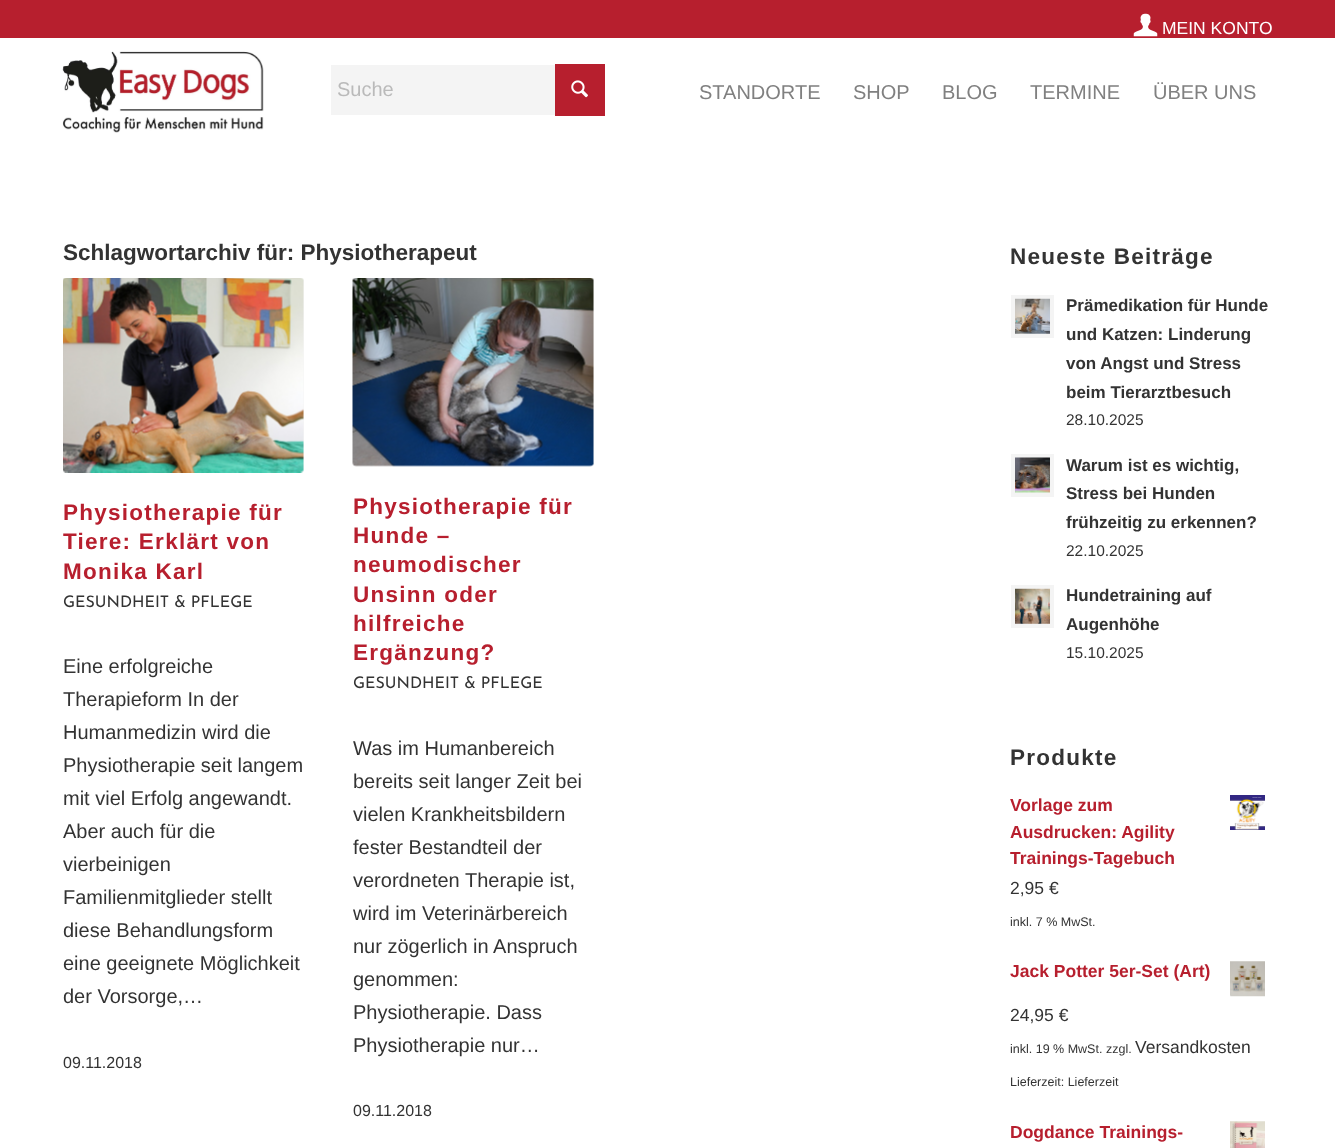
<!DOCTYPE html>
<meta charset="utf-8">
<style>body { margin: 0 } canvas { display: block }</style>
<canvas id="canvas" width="1335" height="1148"></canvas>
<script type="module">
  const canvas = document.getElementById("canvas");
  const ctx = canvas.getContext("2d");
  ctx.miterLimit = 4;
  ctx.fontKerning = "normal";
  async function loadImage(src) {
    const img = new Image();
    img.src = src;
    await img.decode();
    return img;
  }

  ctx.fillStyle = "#ffffff";
  ctx.fillRect(0, 0, 1335, 1148);
  ctx.fillStyle = "#b71f2e";
  ctx.fillRect(0, 0, 1335, 38);
  ctx.drawImage(await loadImage("img1.png"), 1133, 13, 25, 24);
  ctx.font = "17.5px Liberation Sans";
  ctx.fillStyle = "#ffffff";
  ctx.fillText("MEIN KONTO", 1162, 34);
  ctx.fillStyle = "#f4f4f4";
  ctx.fillRect(331, 65, 224, 50);
  ctx.font = "20px Liberation Sans";
  ctx.fillStyle = "#bababa";
  ctx.fillText("Suche", 337, 96);
  ctx.fillStyle = "#b71f2e";
  ctx.fillRect(555, 64, 50, 52);
  ctx.drawImage(await loadImage("img2.png"), 571, 80, 17, 18);
  ctx.drawImage(await loadImage("img3.png"), 62, 51, 202, 82);
  ctx.fillStyle = "#808080";
  ctx.fillText("STANDORTE", 699, 99);
  ctx.fillText("SHOP", 853, 99);
  ctx.fillText("BLOG", 942, 99);
  ctx.fillText("TERMINE", 1030, 99);
  ctx.fillText("ÜBER UNS", 1153, 99);
  ctx.font = "bold 22.5px Liberation Sans";
  ctx.fillStyle = "#333333";
  ctx.fillText("Schlagwortarchiv für: Physiotherapeut", 63, 260);
  ctx.fillStyle = "#f4f4f4";
  ctx.beginPath();
  ctx.roundRect(63, 278, 241, 195, 4);
  ctx.fill();
  ctx.drawImage(await loadImage("img4.png"), 63, 278, 241, 195);
  ctx.letterSpacing = "1.25px";
  ctx.fillStyle = "#b71f2e";
  ctx.fillText("Physiotherapie für", 63, 520);
  ctx.save();
  ctx.beginPath();
  ctx.rect(63, 278, 821, 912);
  ctx.clip();
  ctx.fillText("Tiere: Erklärt von", 63, 549);
  ctx.restore();
  ctx.fillText("Monika Karl", 63, 579);
  ctx.letterSpacing = "0px";
  ctx.font = "16px Josefin Sans";
  ctx.fillStyle = "#333333";
  ctx.fillText("GESUNDHEIT & PFLEGE", 63, 607);
  ctx.font = "20px Liberation Sans";
  ctx.fillText("Eine erfolgreiche", 63, 673);
  ctx.fillText("Therapieform In der", 63, 706);
  ctx.fillText("Humanmedizin wird die", 63, 739);
  ctx.fillText("Physiotherapie seit langem", 63, 772);
  ctx.fillText("mit viel Erfolg angewandt.", 63, 805);
  ctx.fillText("Aber auch für die", 63, 838);
  ctx.fillText("vierbeinigen", 63, 871);
  ctx.fillText("Familienmitglieder stellt", 63, 904);
  ctx.fillText("diese Behandlungsform", 63, 937);
  ctx.fillText("eine geeignete Möglichkeit", 63, 970);
  ctx.fillText("der Vorsorge,…", 63, 1003);
  ctx.font = "16px Liberation Sans";
  ctx.fillText("09.11.2018", 63, 1068);
  ctx.fillStyle = "#f4f4f4";
  ctx.beginPath();
  ctx.roundRect(353, 278, 241, 188, 4);
  ctx.fill();
  ctx.drawImage(await loadImage("img5.png"), 352, 278, 242, 189);
  ctx.letterSpacing = "1.25px";
  ctx.font = "bold 22.5px Liberation Sans";
  ctx.fillStyle = "#b71f2e";
  ctx.fillText("Physiotherapie für", 353, 514);
  ctx.fillText("Hunde –", 353, 543);
  ctx.fillText("neumodischer", 353, 572);
  ctx.fillText("Unsinn oder", 353, 602);
  ctx.fillText("hilfreiche", 353, 631);
  ctx.fillText("Ergänzung?", 353, 660);
  ctx.letterSpacing = "0px";
  ctx.font = "16px Josefin Sans";
  ctx.fillStyle = "#333333";
  ctx.fillText("GESUNDHEIT & PFLEGE", 353, 688);
  ctx.font = "20px Liberation Sans";
  ctx.fillText("Was im Humanbereich", 353, 755);
  ctx.fillText("bereits seit langer Zeit bei", 353, 788);
  ctx.fillText("vielen Krankheitsbildern", 353, 821);
  ctx.fillText("fester Bestandteil der", 353, 854);
  ctx.fillText("verordneten Therapie ist,", 353, 887);
  ctx.fillText("wird im Veterinärbereich", 353, 920);
  ctx.fillText("nur zögerlich in Anspruch", 353, 953);
  ctx.fillText("genommen:", 353, 986);
  ctx.fillText("Physiotherapie. Dass", 353, 1019);
  ctx.fillText("Physiotherapie nur…", 353, 1052);
  ctx.font = "16px Liberation Sans";
  ctx.fillText("09.11.2018", 353, 1116);
  ctx.letterSpacing = "1.25px";
  ctx.font = "bold 22.5px Liberation Sans";
  ctx.fillText("Neueste Beiträge", 1010, 264);
  ctx.fillStyle = "#f4f4f4";
  ctx.fillRect(1011, 295, 43, 43);
  ctx.drawImage(await loadImage("img6.png"), 1015, 298, 35, 36);
  ctx.letterSpacing = "0px";
  ctx.font = "bold 17px Liberation Sans";
  ctx.fillStyle = "#333333";
  ctx.fillText("Prämedikation für Hunde", 1066, 311);
  ctx.fillText("und Katzen: Linderung", 1066, 340);
  ctx.fillText("von Angst und Stress", 1066, 369);
  ctx.fillText("beim Tierarztbesuch", 1066, 398);
  ctx.font = "15.5px Liberation Sans";
  ctx.fillText("28.10.2025", 1066, 425);
  ctx.fillStyle = "#f4f4f4";
  ctx.fillRect(1011, 454, 43, 43);
  ctx.drawImage(await loadImage("img7.png"), 1015, 457, 35, 36);
  ctx.font = "bold 17px Liberation Sans";
  ctx.fillStyle = "#333333";
  ctx.fillText("Warum ist es wichtig,", 1066, 471);
  ctx.fillText("Stress bei Hunden", 1066, 499);
  ctx.fillText("frühzeitig zu erkennen?", 1066, 528);
  ctx.font = "15.5px Liberation Sans";
  ctx.fillText("22.10.2025", 1066, 556);
  ctx.fillStyle = "#f4f4f4";
  ctx.fillRect(1011, 585, 43, 43);
  ctx.drawImage(await loadImage("img8.png"), 1015, 588, 35, 36);
  ctx.font = "bold 17px Liberation Sans";
  ctx.fillStyle = "#333333";
  ctx.fillText("Hundetraining auf", 1066, 601);
  ctx.fillText("Augenhöhe", 1066, 630);
  ctx.font = "15.5px Liberation Sans";
  ctx.fillText("15.10.2025", 1066, 658);
  ctx.letterSpacing = "1.25px";
  ctx.font = "bold 22.5px Liberation Sans";
  ctx.fillText("Produkte", 1010, 765);
  ctx.letterSpacing = "0px";
  ctx.font = "bold 17.5px Liberation Sans";
  ctx.fillStyle = "#b71f2e";
  ctx.fillText("Vorlage zum", 1010, 811);
  ctx.drawImage(await loadImage("img9.png"), 1230, 795, 35, 35);
  ctx.fillText("Ausdrucken: Agility", 1010, 838);
  ctx.fillText("Trainings-Tagebuch", 1010, 864);
  ctx.font = "17.5px Liberation Sans";
  ctx.fillStyle = "#333333";
  ctx.fillText("2,95 €", 1010, 894);
  ctx.font = "12.5px Liberation Sans";
  ctx.fillText("inkl. 7 % MwSt.", 1010, 926);
  ctx.font = "bold 17.5px Liberation Sans";
  ctx.fillStyle = "#b71f2e";
  ctx.fillText("Jack Potter 5er-Set (Art)", 1010, 977);
  ctx.drawImage(await loadImage("img10.png"), 1230, 961, 35, 36);
  ctx.font = "17.5px Liberation Sans";
  ctx.fillStyle = "#333333";
  ctx.fillText("24,95 €", 1010, 1021);
  ctx.font = "12.5px Liberation Sans";
  ctx.fillText("inkl. 19 % MwSt.", 1010, 1053);
  ctx.fillText("zzgl.", 1106, 1053);
  ctx.font = "17.5px Liberation Sans";
  ctx.fillText("Versandkosten", 1135, 1053);
  ctx.font = "12.5px Liberation Sans";
  ctx.fillText("Lieferzeit: Lieferzeit", 1010, 1086);
  ctx.font = "bold 17.5px Liberation Sans";
  ctx.fillStyle = "#b71f2e";
  ctx.fillText("Dogdance Trainings-", 1010, 1138);
  ctx.drawImage(await loadImage("img11.png"), 1230, 1121, 35, 27);
</script>
